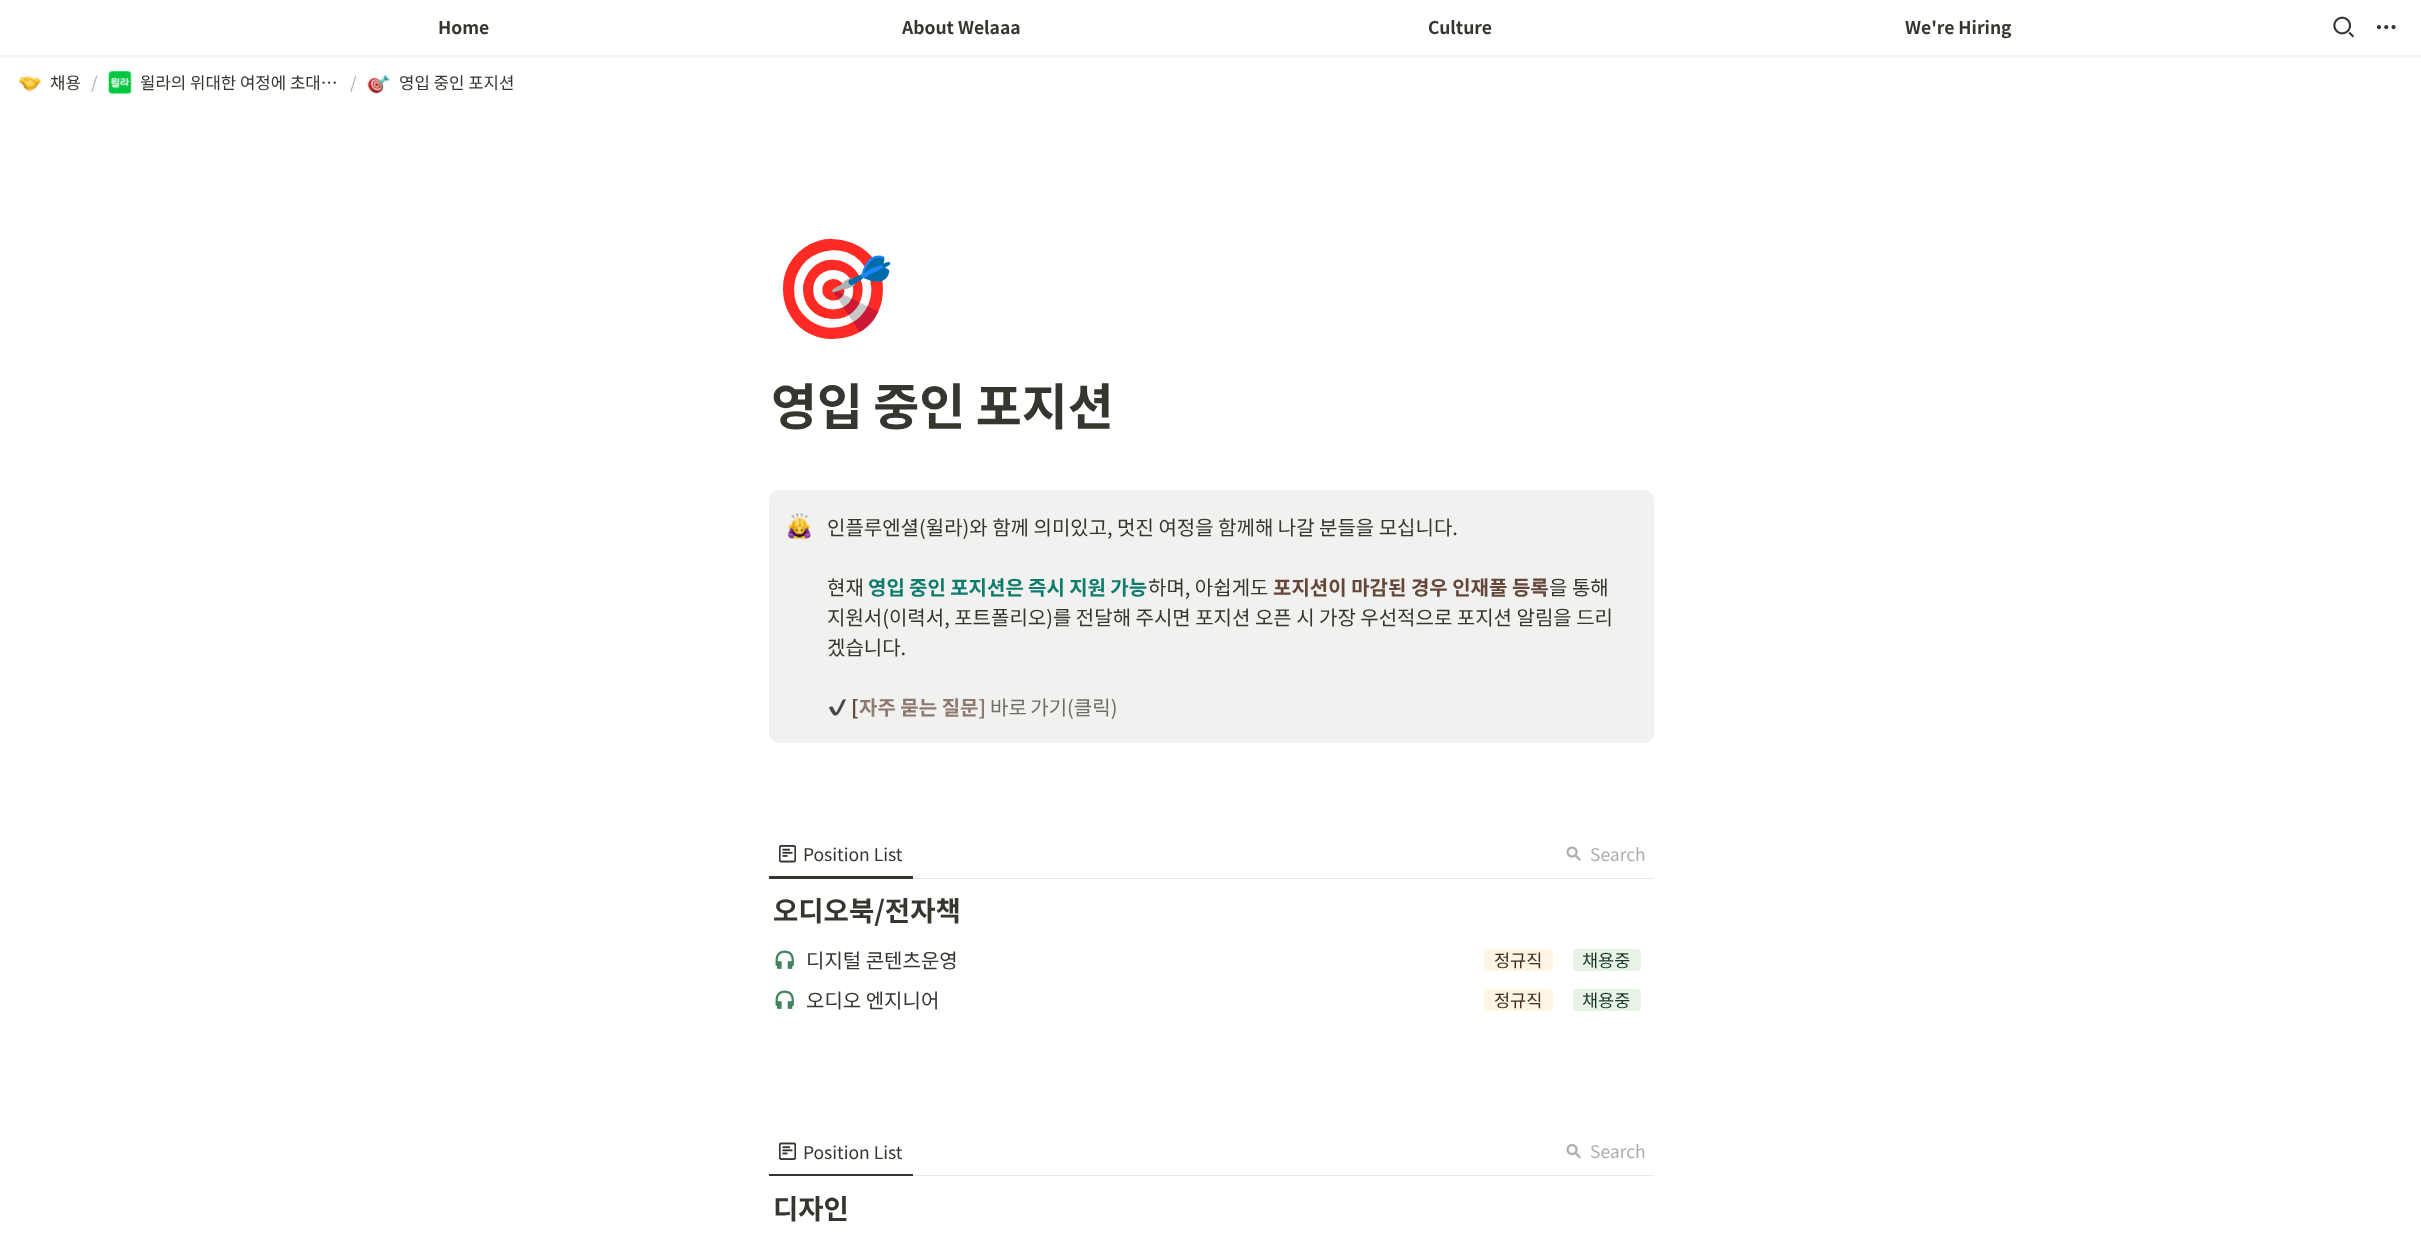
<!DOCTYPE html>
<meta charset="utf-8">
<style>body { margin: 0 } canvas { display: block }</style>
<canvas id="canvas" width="2421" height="1244"></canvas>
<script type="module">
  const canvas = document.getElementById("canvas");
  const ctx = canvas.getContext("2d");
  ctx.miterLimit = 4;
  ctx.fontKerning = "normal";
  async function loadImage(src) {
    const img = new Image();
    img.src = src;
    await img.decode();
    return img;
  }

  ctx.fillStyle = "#ffffff";
  ctx.fillRect(0, 0, 2421, 1244);
  ctx.font = "bold 17.5px Noto Sans KR";
  ctx.fillStyle = "#37352f";
  ctx.fillText("Home", 438, 34);
  ctx.fillText("About Welaaa", 902, 34);
  ctx.fillText("Culture", 1428, 34);
  ctx.fillText("We're Hiring", 1905, 34);
  ctx.drawImage(await loadImage("img1.png"), 2333, 16, 21, 22);
  ctx.drawImage(await loadImage("img2.png"), 2376, 25, 20, 5);
  ctx.fillStyle = "#f5f5f5";
  ctx.fillRect(0, 55, 2421, 3);
  ctx.drawImage(await loadImage("img3.png"), 18, 76, 23, 16);
  ctx.font = "16.75px Noto Sans KR";
  ctx.fillStyle = "#37352f";
  ctx.fillText("채용", 50, 89);
  ctx.fillStyle = "#afaeac";
  ctx.fillText("/", 91, 89);
  ctx.drawImage(await loadImage("img4.png"), 108, 71, 24, 24);
  ctx.fillStyle = "#37352f";
  ctx.fillText("윌라의 위대한 여정에 초대…", 140, 89);
  ctx.fillStyle = "#afaeac";
  ctx.fillText("/", 350, 89);
  ctx.drawImage(await loadImage("img5.png"), 367, 74, 23, 20);
  ctx.fillStyle = "#37352f";
  ctx.fillText("영입 중인 포지션", 399, 89);
  ctx.font = "98px Noto Color Emoji";
  ctx.fillStyle = "#000000";
  ctx.fillText("🎯", 772, 323);
  ctx.wordSpacing = "-1px";
  ctx.font = "bold 50px Noto Sans KR";
  ctx.fillStyle = "#37352f";
  ctx.fillText("영입 중인 포지션", 771, 425);
  ctx.fillStyle = "#f1f1ef";
  ctx.beginPath();
  ctx.roundRect(769, 490, 885, 253, 10);
  ctx.fill();
  ctx.drawImage(await loadImage("img6.png"), 787, 513, 24, 27);
  ctx.wordSpacing = "0px";
  ctx.font = "20px Noto Sans KR";
  ctx.fillStyle = "#37352f";
  ctx.fillText("인플루엔셜(윌라)와 함께 의미있고, 멋진 여정을 함께해 나갈 분들을 모십니다.", 827, 535);
  ctx.fillText("현재", 827, 595);
  ctx.wordSpacing = "-0.25px";
  ctx.font = "bold 20px Noto Sans KR";
  ctx.fillStyle = "#0f7b6c";
  ctx.fillText("영입 중인 포지션은 즉시 지원 가능", 868, 595);
  ctx.wordSpacing = "0px";
  ctx.font = "20px Noto Sans KR";
  ctx.fillStyle = "#37352f";
  ctx.fillText("하며, 아쉽게도", 1148, 595);
  ctx.font = "bold 20px Noto Sans KR";
  ctx.fillStyle = "#64473a";
  ctx.fillText("포지션이 마감된 경우 인재풀 등록", 1273, 595);
  ctx.font = "20px Noto Sans KR";
  ctx.fillStyle = "#37352f";
  ctx.fillText("을 통해", 1549, 595);
  ctx.fillText("지원서(이력서, 포트폴리오)를 전달해 주시면 포지션 오픈 시 가장 우선적으로 포지션 알림을 드리", 827, 625);
  ctx.fillText("겠습니다.", 827, 655);
  ctx.drawImage(await loadImage("img7.png"), 828, 699, 19, 17);
  ctx.font = "bold 20px Noto Sans KR";
  ctx.fillStyle = "#64473a";
  ctx.fillText("[", 851, 715);
  ctx.fillStyle = "#8e7a70";
  ctx.fillText("자주 묻는 질문]", 859, 715);
  ctx.wordSpacing = "-1px";
  ctx.font = "20px Noto Sans KR";
  ctx.fillStyle = "#6f6d69";
  ctx.fillText("바로 가기(클릭)", 990, 715);
  ctx.fillStyle = "#e9e9e7";
  ctx.fillRect(913, 878, 741, 1);
  ctx.fillStyle = "#37352f";
  ctx.fillRect(769, 876, 144, 3);
  ctx.drawImage(await loadImage("img8.png"), 779, 845, 17, 18);
  ctx.wordSpacing = "0px";
  ctx.font = "17.5px Noto Sans KR";
  ctx.fillText("Position List", 803, 861);
  ctx.drawImage(await loadImage("img9.png"), 1566, 846, 15, 15);
  ctx.fillStyle = "#afaeac";
  ctx.fillText("Search", 1590, 861);
  ctx.font = "bold 27.5px Noto Sans KR";
  ctx.fillStyle = "#37352f";
  ctx.fillText("오디오북/전자책", 773, 921);
  ctx.drawImage(await loadImage("img10.png"), 775, 950, 19, 19);
  ctx.font = "20px Noto Sans KR";
  ctx.fillText("디지털 콘텐츠운영", 806, 968);
  ctx.fillStyle = "#fef5e6";
  ctx.beginPath();
  ctx.roundRect(1484, 949, 69, 22, 4);
  ctx.fill();
  ctx.font = "17.5px Noto Sans KR";
  ctx.fillStyle = "#402c1b";
  ctx.fillText("정규직", 1494, 967);
  ctx.fillStyle = "#e7f3e6";
  ctx.beginPath();
  ctx.roundRect(1573, 949, 68, 22, 4);
  ctx.fill();
  ctx.fillStyle = "#1c3829";
  ctx.fillText("채용중", 1582, 967);
  ctx.drawImage(await loadImage("img10.png"), 775, 990, 19, 19);
  ctx.font = "20px Noto Sans KR";
  ctx.fillStyle = "#37352f";
  ctx.fillText("오디오 엔지니어", 806, 1008);
  ctx.fillStyle = "#fef5e6";
  ctx.beginPath();
  ctx.roundRect(1484, 989, 69, 22, 4);
  ctx.fill();
  ctx.font = "17.5px Noto Sans KR";
  ctx.fillStyle = "#402c1b";
  ctx.fillText("정규직", 1494, 1007);
  ctx.fillStyle = "#e7f3e6";
  ctx.beginPath();
  ctx.roundRect(1573, 989, 68, 22, 4);
  ctx.fill();
  ctx.fillStyle = "#1c3829";
  ctx.fillText("채용중", 1582, 1007);
  ctx.fillStyle = "#e9e9e7";
  ctx.fillRect(913, 1175, 741, 1);
  ctx.fillStyle = "#37352f";
  ctx.fillRect(769, 1174, 144, 2);
  ctx.drawImage(await loadImage("img11.png"), 779, 1142, 17, 18);
  ctx.fillText("Position List", 803, 1159);
  ctx.drawImage(await loadImage("img12.png"), 1566, 1144, 15, 15);
  ctx.fillStyle = "#afaeac";
  ctx.fillText("Search", 1590, 1158);
  ctx.font = "bold 27.5px Noto Sans KR";
  ctx.fillStyle = "#37352f";
  ctx.fillText("디자인", 773, 1219);
</script>
